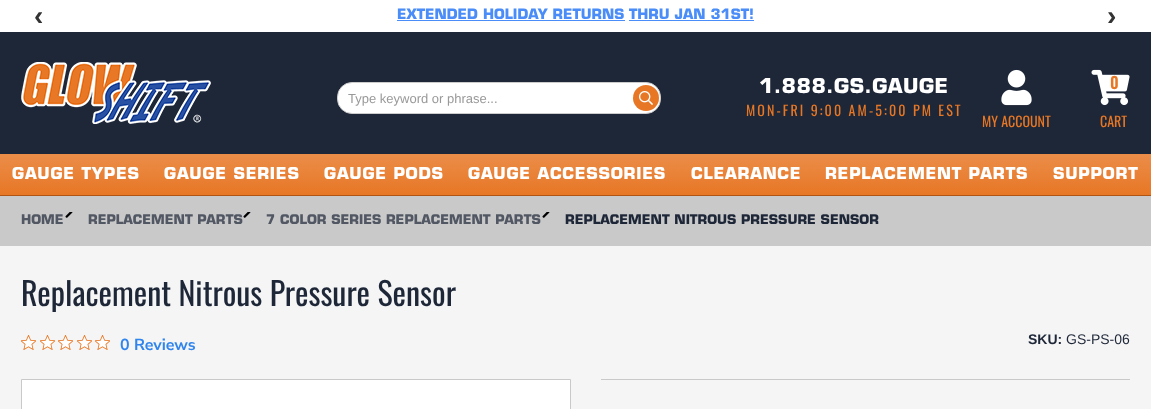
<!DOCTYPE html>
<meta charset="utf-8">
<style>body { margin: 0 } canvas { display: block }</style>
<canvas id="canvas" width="1151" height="409"></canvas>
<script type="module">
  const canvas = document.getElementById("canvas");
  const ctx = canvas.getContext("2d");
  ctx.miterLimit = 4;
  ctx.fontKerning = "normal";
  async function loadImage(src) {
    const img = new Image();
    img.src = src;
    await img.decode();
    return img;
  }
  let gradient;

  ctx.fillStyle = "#ffffff";
  ctx.fillRect(0, 0, 1151, 409);
  ctx.font = "bold 28px Liberation Sans";
  ctx.fillStyle = "#333333";
  ctx.fillText("‹", 34, 25);
  ctx.font = "bold 14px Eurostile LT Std";
  ctx.fillStyle = "#4a8df9";
  ctx.fillText("EXTENDED HOLIDAY RETURNS", 397, 19);
  ctx.fillRect(397, 20, 228, 1);
  ctx.fillText("THRU JAN 31ST!", 629, 19);
  ctx.fillRect(629, 20, 125, 1);
  ctx.font = "bold 28px Liberation Sans";
  ctx.fillStyle = "#333333";
  ctx.fillText("›", 1107, 25);
  ctx.fillStyle = "#1e2738";
  ctx.fillRect(0, 32, 1151, 122);
  ctx.fillStyle = "#af5412";
  ctx.fillRect(0, 195, 1151, 1);
  ctx.drawImage(await loadImage("img1.png"), 21, 62, 190, 62);
  ctx.fillStyle = "#ffffff";
  ctx.beginPath();
  ctx.roundRect(337.5, 82.5, 323, 31, 14.5);
  ctx.fill();
  ctx.strokeStyle = "#cccccc";
  ctx.stroke();
  ctx.font = "13px Liberation Sans";
  ctx.fillStyle = "#999999";
  ctx.fillText("Type keyword or phrase...", 348, 103);
  ctx.fillStyle = "#e77725";
  ctx.beginPath();
  ctx.arc(646, 98, 13, 0, Math.PI * 2);
  ctx.fill();
  ctx.drawImage(await loadImage("img2.png"), 639, 91, 14, 14);
  ctx.letterSpacing = "0.5px";
  ctx.font = "bold 20px Eurostile LT Std";
  ctx.fillStyle = "#ffffff";
  ctx.fillText("1.888.GS.GAUGE", 759, 93);
  ctx.letterSpacing = "2.1px";
  ctx.font = "14px Oswald";
  ctx.fillStyle = "#e77725";
  ctx.fillText("MON-FRI 9:00 AM-5:00 PM EST", 746, 116);
  ctx.drawImage(await loadImage("img3.png"), 1001, 69, 31, 37);
  ctx.letterSpacing = "0px";
  ctx.fillText("MY ACCOUNT", 982, 127);
  ctx.drawImage(await loadImage("img4.png"), 1091, 69, 39, 37);
  ctx.font = "600 16px Oswald";
  ctx.fillText("0", 1110, 89);
  ctx.font = "14px Oswald";
  ctx.fillText("CART", 1100, 127);
  gradient = ctx.createLinearGradient(576, 154, 576, 195);
  gradient.addColorStop(0, "#eb8d49");
  gradient.addColorStop(1, "#e77725");
  ctx.fillStyle = gradient;
  ctx.fillRect(0, 155, 1151, 40);
  ctx.fillStyle = "#eb8d49";
  ctx.fillRect(0, 154, 1151, 1);
  ctx.letterSpacing = "0.75px";
  ctx.font = "bold 16px Eurostile LT Std";
  ctx.fillStyle = "#ffffff";
  ctx.fillText("GAUGE TYPES", 12, 179);
  ctx.fillText("GAUGE SERIES", 164, 179);
  ctx.fillText("GAUGE PODS", 324, 179);
  ctx.fillText("GAUGE ACCESSORIES", 468, 179);
  ctx.fillText("CLEARANCE", 691, 179);
  ctx.fillText("REPLACEMENT PARTS", 825, 179);
  ctx.fillText("SUPPORT", 1053, 179);
  ctx.fillStyle = "#f5f5f5";
  ctx.fillRect(0, 246, 1151, 163);
  ctx.fillStyle = "#c9c9c9";
  ctx.fillRect(0, 196, 1151, 50);
  ctx.letterSpacing = "0px";
  ctx.font = "bold 13px Eurostile LT Std";
  ctx.fillStyle = "#515763";
  ctx.fillText("HOME", 21, 224);
  ctx.drawImage(await loadImage("img5.png"), 65, 212, 8, 6);
  ctx.fillText("REPLACEMENT PARTS", 88, 224);
  ctx.drawImage(await loadImage("img5.png"), 243, 212, 8, 6);
  ctx.fillText("7 COLOR SERIES REPLACEMENT PARTS", 266, 224);
  ctx.drawImage(await loadImage("img5.png"), 542, 212, 8, 6);
  ctx.fillStyle = "#1e2738";
  ctx.fillText("REPLACEMENT NITROUS PRESSURE SENSOR", 565, 224);
  ctx.font = "32px Oswald";
  ctx.fillText("Replacement Nitrous Pressure Sensor", 21, 306);
  ctx.drawImage(await loadImage("img6.png"), 21, 335, 15, 15);
  ctx.drawImage(await loadImage("img6.png"), 40, 335, 15, 15);
  ctx.drawImage(await loadImage("img6.png"), 58, 335, 15, 15);
  ctx.drawImage(await loadImage("img6.png"), 77, 335, 15, 15);
  ctx.drawImage(await loadImage("img6.png"), 95, 335, 15, 15);
  ctx.font = "200 16px Nunito Sans";
  ctx.fillStyle = "#2f84ed";
  ctx.fillText("0 Reviews", 120, 350);
  ctx.font = "bold 14px Liberation Sans";
  ctx.fillStyle = "#1e2738";
  ctx.fillText("SKU:", 1028, 344);
  ctx.font = "14px Liberation Sans";
  ctx.fillText("GS-PS-06", 1066, 344);
  ctx.fillStyle = "#ffffff";
  ctx.beginPath();
  ctx.rect(21.5, 379.5, 549, 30);
  ctx.fill();
  ctx.strokeStyle = "#c9c9c9";
  ctx.stroke();
  ctx.fillStyle = "#c9c9c9";
  ctx.fillRect(601, 379, 529, 1);
</script>
